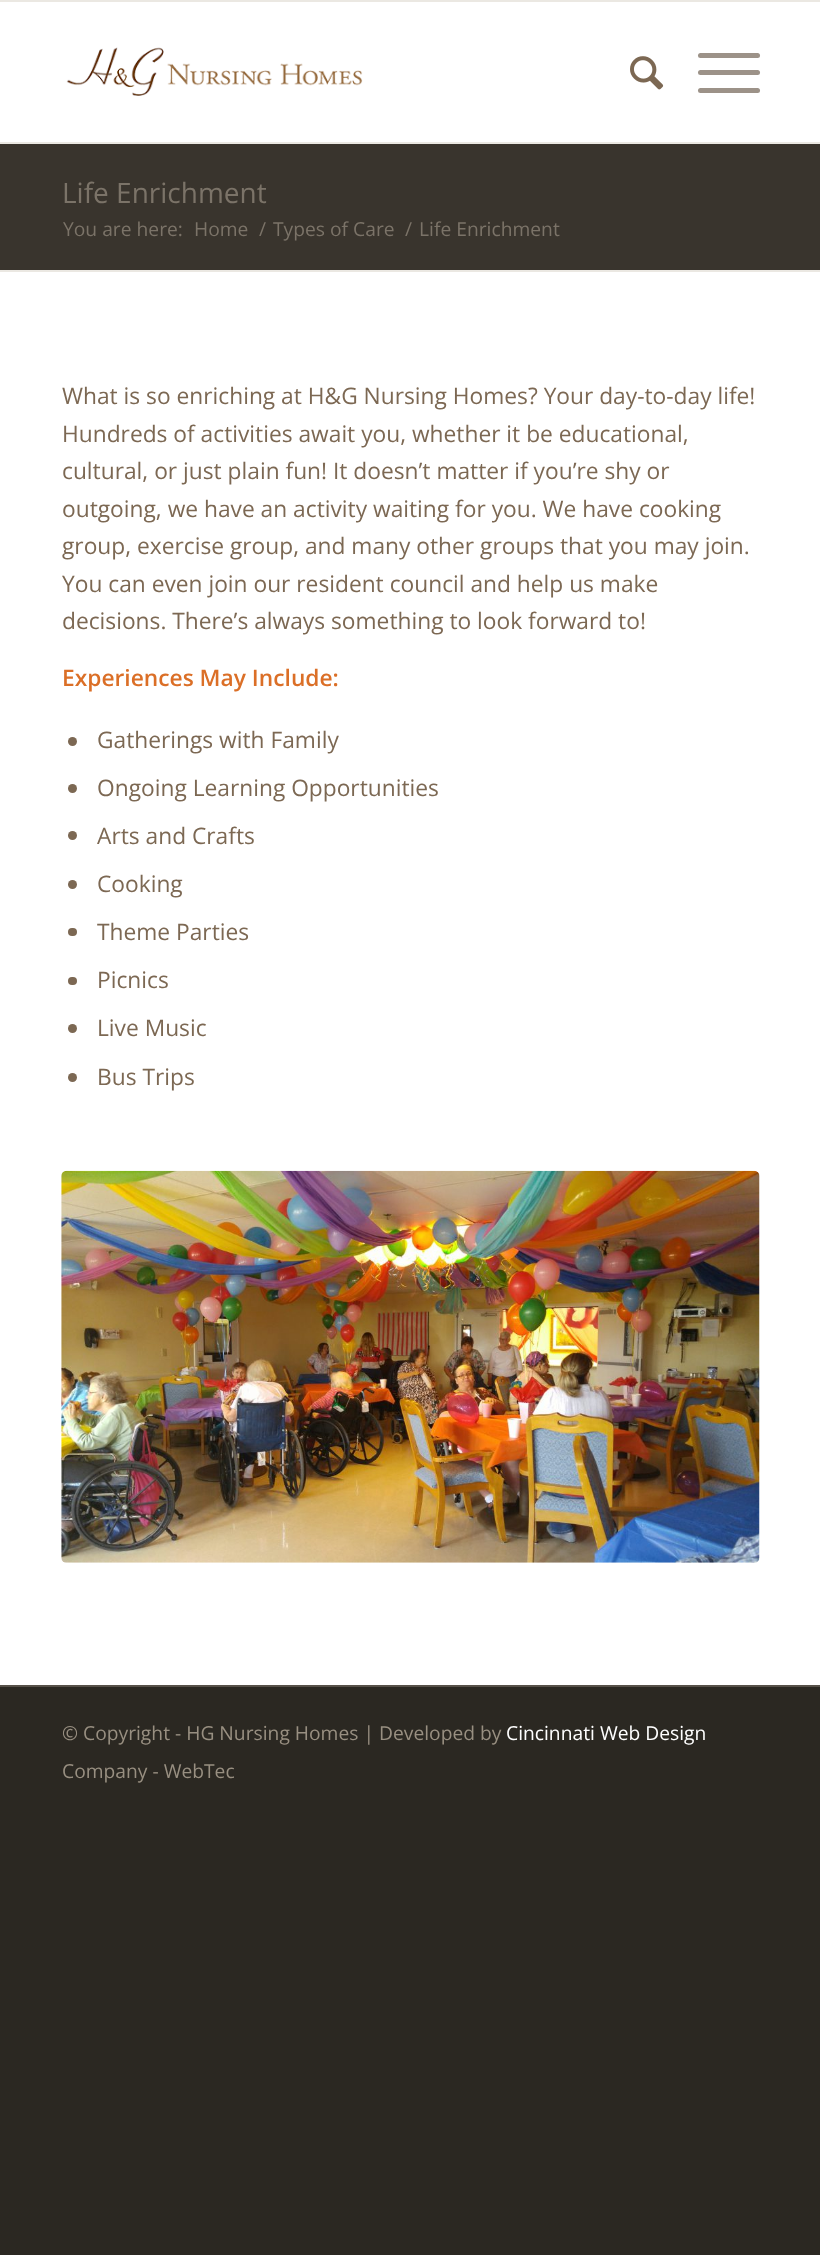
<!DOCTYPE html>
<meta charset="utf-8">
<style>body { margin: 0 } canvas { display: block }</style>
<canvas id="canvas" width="820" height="2255"></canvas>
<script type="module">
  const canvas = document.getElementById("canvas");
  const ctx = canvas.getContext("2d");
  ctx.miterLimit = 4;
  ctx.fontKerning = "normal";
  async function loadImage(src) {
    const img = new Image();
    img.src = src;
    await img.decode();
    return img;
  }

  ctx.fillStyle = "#2b2822";
  ctx.fillRect(0, 0, 820, 2255);
  ctx.fillStyle = "#ffffff";
  ctx.fillRect(0, 2, 820, 1683);
  ctx.fillStyle = "#ebe8e2";
  ctx.fillRect(0, 0, 820, 2);
  ctx.fillRect(0, 142, 820, 2);
  ctx.drawImage(await loadImage("img1.png"), 66, 47, 297, 49);
  ctx.drawImage(await loadImage("img2.png"), 630, 56, 34, 34);
  ctx.fillStyle = "#9c9288";
  ctx.beginPath();
  ctx.roundRect(698, 70, 62, 5, 2.5);
  ctx.fill();
  ctx.beginPath();
  ctx.roundRect(698, 53, 62, 5, 2.5);
  ctx.fill();
  ctx.beginPath();
  ctx.roundRect(698, 88, 62, 5, 2.5);
  ctx.fill();
  ctx.fillStyle = "#39342d";
  ctx.fillRect(0, 144, 820, 126);
  ctx.font = "28px Open Sans";
  ctx.fillStyle = "#7b7368";
  ctx.fillText("Life Enrichment", 62, 203);
  ctx.font = "19.25px Open Sans";
  ctx.fillText("You are here:", 63, 236);
  ctx.fillText("Home", 194, 236);
  ctx.fillText("/", 259, 236);
  ctx.fillText("Types of Care", 273, 236);
  ctx.fillText("/", 405, 236);
  ctx.fillText("Life Enrichment", 419, 236);
  ctx.fillStyle = "#ebe8e2";
  ctx.fillRect(0, 270, 820, 2);
  ctx.font = "22.75px Open Sans";
  ctx.fillStyle = "#7c6853";
  ctx.fillText("What is so enriching at H&G Nursing Homes? Your day-to-day life!", 62, 404);
  ctx.fillText("Hundreds of activities await you, whether it be educational,", 62, 442);
  ctx.fillText("cultural, or just plain fun! It doesn’t matter if you’re shy or", 62, 479);
  ctx.fillText("outgoing, we have an activity waiting for you. We have cooking", 62, 517);
  ctx.fillText("group, exercise group, and many other groups that you may join.", 62, 554);
  ctx.fillText("You can even join our resident council and help us make", 62, 592);
  ctx.fillText("decisions. There’s always something to look forward to!", 62, 629);
  ctx.font = "600 22.75px Open Sans";
  ctx.fillStyle = "#db6f27";
  ctx.fillText("Experiences May Include:", 62, 686);
  ctx.fillStyle = "#7c6853";
  ctx.beginPath();
  ctx.arc(72.5, 741.5, 4.5, 0, Math.PI * 2);
  ctx.fill();
  ctx.font = "22.75px Open Sans";
  ctx.fillText("Gatherings with Family", 97, 748);
  ctx.beginPath();
  ctx.arc(72.5, 788.5, 4.5, 0, Math.PI * 2);
  ctx.fill();
  ctx.fillText("Ongoing Learning Opportunities", 97, 796);
  ctx.beginPath();
  ctx.arc(72.5, 835.5, 4.5, 0, Math.PI * 2);
  ctx.fill();
  ctx.fillText("Arts and Crafts", 97, 844);
  ctx.beginPath();
  ctx.arc(72.5, 884.5, 4.5, 0, Math.PI * 2);
  ctx.fill();
  ctx.fillText("Cooking", 97, 892);
  ctx.beginPath();
  ctx.roundRect(68, 928, 9, 8, 4);
  ctx.fill();
  ctx.fillText("Theme Parties", 97, 940);
  ctx.beginPath();
  ctx.roundRect(68, 977, 9, 8, 4);
  ctx.fill();
  ctx.fillText("Picnics", 97, 988);
  ctx.beginPath();
  ctx.arc(72.5, 1028.5, 4.5, 0, Math.PI * 2);
  ctx.fill();
  ctx.fillText("Live Music", 97, 1036);
  ctx.beginPath();
  ctx.arc(72.5, 1077.5, 4.5, 0, Math.PI * 2);
  ctx.fill();
  ctx.fillText("Bus Trips", 97, 1085);
  ctx.drawImage(await loadImage("img3.png"), 61, 1170, 699, 393);
  ctx.fillStyle = "#575149";
  ctx.fillRect(0, 1685, 820, 2);
  ctx.font = "19.25px Open Sans";
  ctx.fillStyle = "#988f81";
  ctx.fillText("© Copyright - HG Nursing Homes | Developed by", 62, 1740);
  ctx.fillStyle = "#ffffff";
  ctx.fillText("Cincinnati Web Design", 506, 1740);
  ctx.fillStyle = "#988f81";
  ctx.fillText("Company - WebTec", 62, 1778);
</script>
